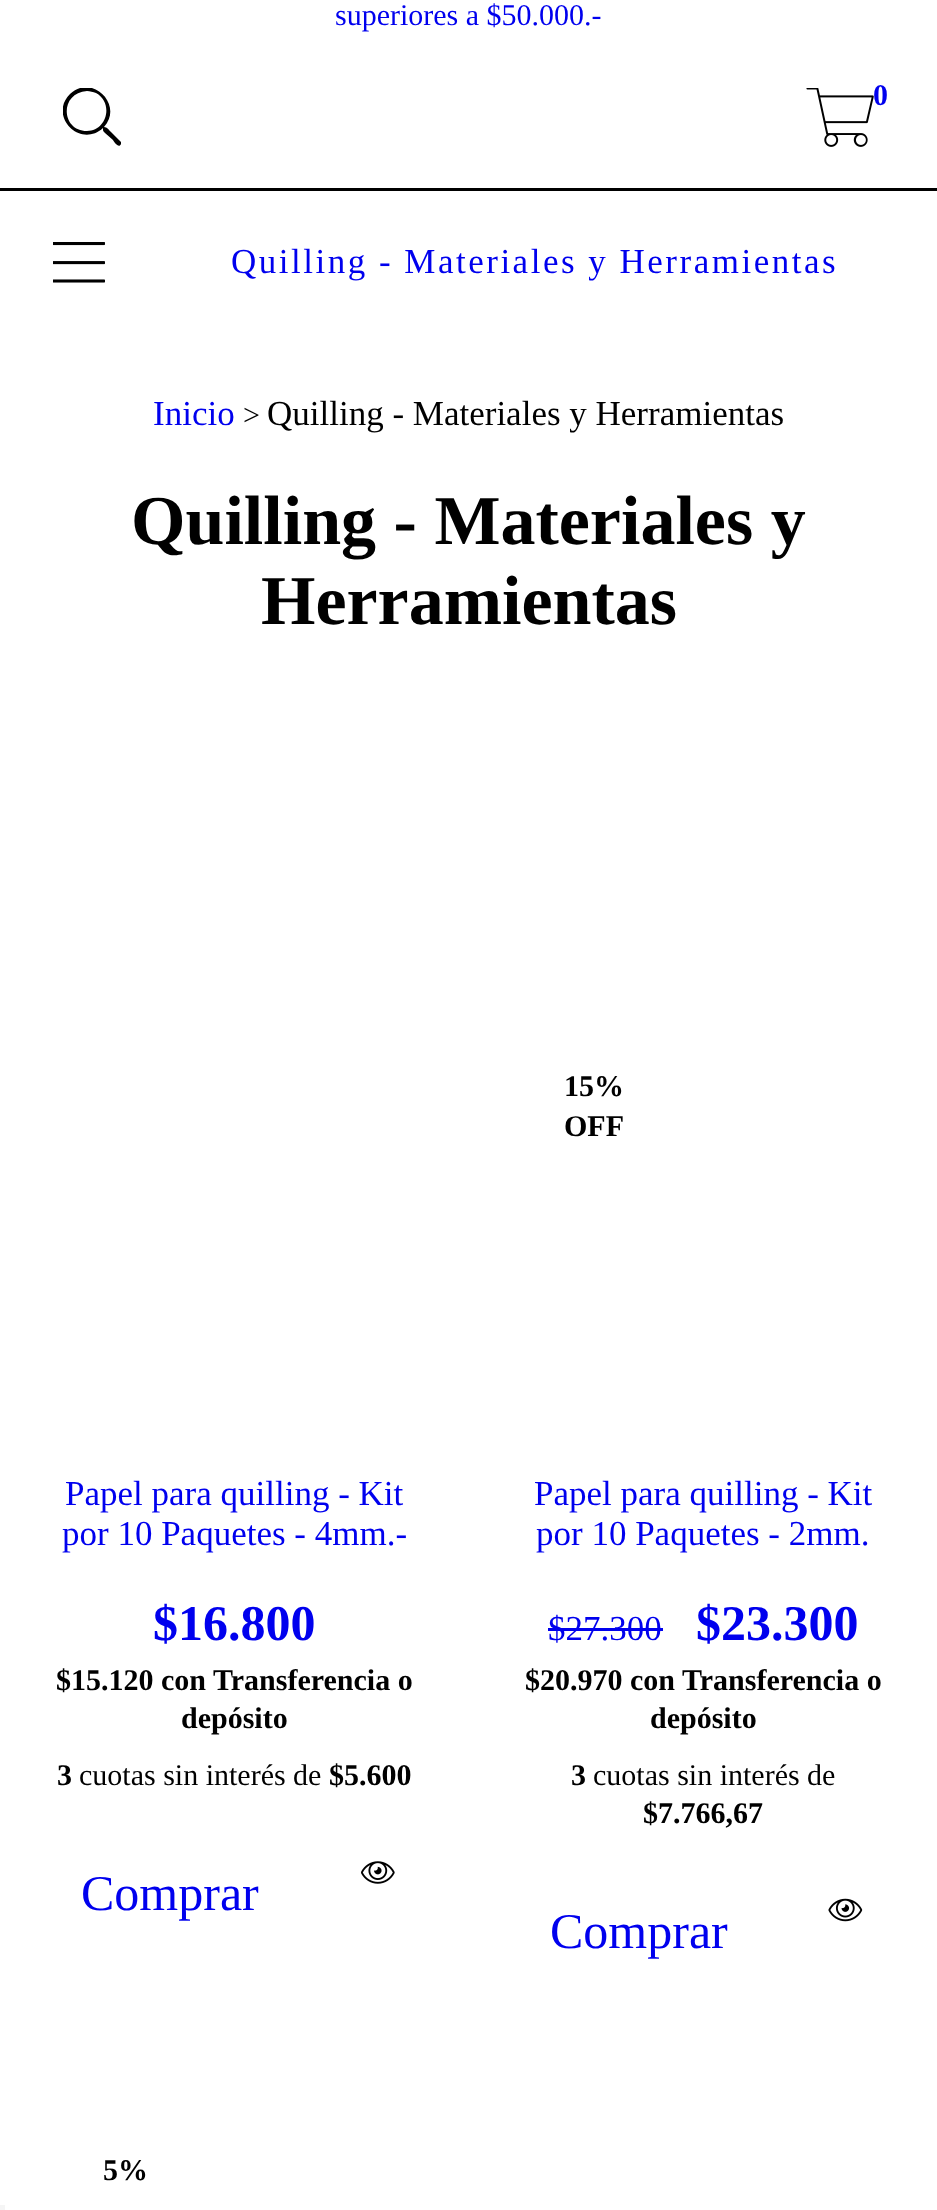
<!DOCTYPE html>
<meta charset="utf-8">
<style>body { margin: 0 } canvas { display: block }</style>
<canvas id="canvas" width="937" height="2210"></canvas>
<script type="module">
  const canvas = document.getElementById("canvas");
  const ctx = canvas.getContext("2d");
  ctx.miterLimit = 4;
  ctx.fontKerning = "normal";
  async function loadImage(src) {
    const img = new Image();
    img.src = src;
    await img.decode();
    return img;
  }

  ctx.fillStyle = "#ffffff";
  ctx.fillRect(0, 0, 937, 2210);
  ctx.font = "30px Liberation Serif";
  ctx.fillStyle = "#0000ee";
  ctx.fillText("superiores a $50.000.-", 335, 25);
  ctx.save();
  ctx.beginPath();
  ctx.rect(63, 88, 60, 60);
  ctx.clip();
  ctx.fillStyle = "#000000";
  ctx.beginPath();
  ctx.moveTo(121, 142);
  ctx.lineTo(111, 132);
  ctx.bezierCurveTo(109, 130, 107, 127, 104, 127);
  ctx.bezierCurveTo(124, 105, 92, 73, 70, 94);
  ctx.bezierCurveTo(48, 116, 80, 149, 103, 128);
  ctx.bezierCurveTo(103, 131, 103, 131, 105, 133);
  ctx.lineTo(113, 140);
  ctx.bezierCurveTo(114, 142, 119, 149, 121, 144);
  ctx.closePath();
  ctx.moveTo(87, 131);
  ctx.bezierCurveTo(61, 131, 59, 93, 87, 91);
  ctx.bezierCurveTo(90, 91, 93, 92, 96, 93);
  ctx.bezierCurveTo(114, 103, 107, 131, 87, 131);
  ctx.closePath();
  ctx.fill();
  ctx.restore();
  ctx.drawImage(await loadImage("img1.png"), 806, 88, 68, 59);
  ctx.font = "bold 30px Liberation Serif";
  ctx.fillText("0", 873, 105);
  ctx.fillStyle = "#000000";
  ctx.fillRect(0, 188, 937, 3);
  ctx.drawImage(await loadImage("img2.png"), 53, 242, 52, 41);
  ctx.letterSpacing = "2.5px";
  ctx.font = "35px Liberation Serif";
  ctx.fillStyle = "#0000ee";
  ctx.fillText("Quilling - Materiales y Herramientas", 231, 273);
  ctx.letterSpacing = "0px";
  ctx.fillText("Inicio", 153, 425);
  ctx.font = "30px Liberation Serif";
  ctx.fillStyle = "#000000";
  ctx.fillText(">", 243, 425);
  ctx.font = "35px Liberation Serif";
  ctx.fillText("Quilling - Materiales y Herramientas", 267, 425);
  ctx.font = "bold 70px Liberation Serif";
  ctx.fillText("Quilling - Materiales y", 131, 544);
  ctx.fillText("Herramientas", 261, 624);
  ctx.font = "35px Liberation Serif";
  ctx.fillStyle = "#0000ee";
  ctx.fillText("Papel para quilling - Kit", 65, 1505);
  ctx.fillText("por 10 Paquetes - 4mm.-", 62, 1545);
  ctx.font = "bold 50px Liberation Serif";
  ctx.fillText("$16.800", 153, 1640);
  ctx.font = "bold 30px Liberation Serif";
  ctx.fillStyle = "#000000";
  ctx.fillText("$15.120 con", 56, 1690);
  ctx.fillText("Transferencia o", 213, 1690);
  ctx.fillText("depósito", 181, 1728);
  ctx.fillText("3", 57, 1785);
  ctx.font = "30px Liberation Serif";
  ctx.fillText("cuotas sin interés de", 79, 1785);
  ctx.font = "bold 30px Liberation Serif";
  ctx.fillText("$5.600", 329, 1785);
  ctx.drawImage(await loadImage("img3.png"), 361, 1861, 34, 23);
  ctx.font = "50px Liberation Serif";
  ctx.fillStyle = "#0000ee";
  ctx.fillText("Comprar", 81, 1910);
  ctx.font = "bold 30px Liberation Serif";
  ctx.fillStyle = "#000000";
  ctx.fillText("15%", 564, 1096);
  ctx.fillText("OFF", 564, 1136);
  ctx.font = "35px Liberation Serif";
  ctx.fillStyle = "#0000ee";
  ctx.fillText("Papel para quilling - Kit", 534, 1505);
  ctx.fillText("por 10 Paquetes - 2mm.", 536, 1545);
  ctx.fillText("$27.300", 548, 1640);
  ctx.fillRect(548, 1628, 115, 3);
  ctx.font = "bold 50px Liberation Serif";
  ctx.fillText("$23.300", 696, 1640);
  ctx.font = "bold 30px Liberation Serif";
  ctx.fillStyle = "#000000";
  ctx.fillText("$20.970 con", 525, 1690);
  ctx.fillText("Transferencia o", 682, 1690);
  ctx.fillText("depósito", 650, 1728);
  ctx.fillText("3", 571, 1785);
  ctx.font = "30px Liberation Serif";
  ctx.fillText("cuotas sin interés de", 593, 1785);
  ctx.font = "bold 30px Liberation Serif";
  ctx.fillText("$7.766,67", 643, 1823);
  ctx.drawImage(await loadImage("img4.png"), 828, 1898, 35, 24);
  ctx.font = "50px Liberation Serif";
  ctx.fillStyle = "#0000ee";
  ctx.fillText("Comprar", 550, 1948);
  ctx.font = "bold 30px Liberation Serif";
  ctx.fillStyle = "#000000";
  ctx.fillText("5%", 103, 2180);
  ctx.fillStyle = "#f5f5f5";
  ctx.fillRect(0, 2205, 5, 5);
</script>
